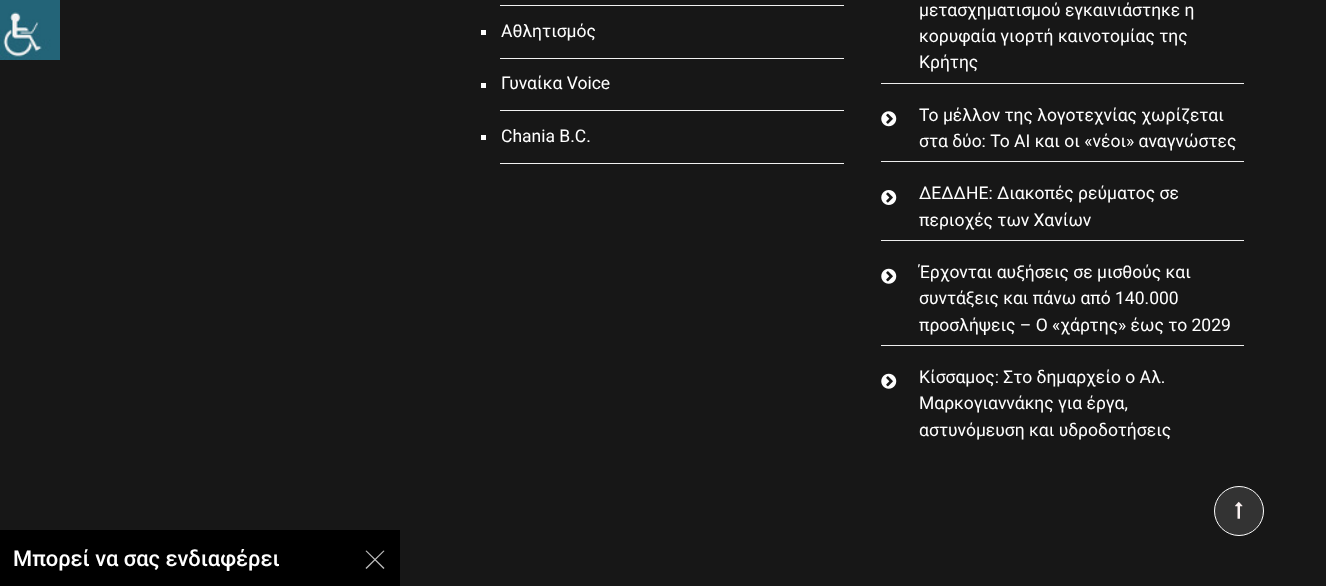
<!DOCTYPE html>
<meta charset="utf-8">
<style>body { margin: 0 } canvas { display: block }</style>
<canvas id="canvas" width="1326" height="586"></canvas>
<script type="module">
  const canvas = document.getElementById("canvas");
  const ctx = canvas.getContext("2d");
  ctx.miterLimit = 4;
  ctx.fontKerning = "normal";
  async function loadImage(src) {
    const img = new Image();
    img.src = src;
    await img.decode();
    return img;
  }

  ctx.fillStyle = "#171717";
  ctx.fillRect(0, 0, 1326, 586);
  ctx.drawImage(await loadImage("img1.png"), 0, 0, 60, 60);
  ctx.fillStyle = "#f1f1f1";
  ctx.fillRect(500, 5, 344, 1);
  ctx.fillRect(500, 58, 344, 1);
  ctx.fillStyle = "#ffffff";
  ctx.fillRect(481, 30, 5, 5);
  ctx.font = "17.5px Roboto";
  ctx.fillText("Αθλητισμός", 501, 37);
  ctx.fillStyle = "#f1f1f1";
  ctx.fillRect(500, 110, 344, 1);
  ctx.fillStyle = "#ffffff";
  ctx.fillRect(481, 83, 5, 5);
  ctx.fillText("Γυναίκα Voice", 501, 89);
  ctx.fillStyle = "#f1f1f1";
  ctx.fillRect(500, 163, 344, 1);
  ctx.fillStyle = "#ffffff";
  ctx.fillRect(481, 135, 5, 5);
  ctx.fillText("Chania B.C.", 501, 142);
  ctx.fillStyle = "#eeeeee";
  ctx.fillRect(881, 83, 363, 1);
  ctx.fillStyle = "#ffffff";
  ctx.fillText("μετασχηματισμού εγκαινιάστηκε η", 919, 16);
  ctx.fillText("κορυφαία γιορτή καινοτομίας της", 919, 42);
  ctx.fillText("Κρήτης", 919, 68);
  ctx.fillStyle = "#eeeeee";
  ctx.fillRect(881, 161, 363, 1);
  ctx.drawImage(await loadImage("img2.png"), 881, 111, 16, 16);
  ctx.fillStyle = "#ffffff";
  ctx.fillText("Το μέλλον της λογοτεχνίας χωρίζεται", 919, 121);
  ctx.fillText("στα δύο: Το AI και οι «νέοι» αναγνώστες", 919, 147);
  ctx.fillStyle = "#eeeeee";
  ctx.fillRect(881, 240, 363, 1);
  ctx.drawImage(await loadImage("img3.png"), 881, 190, 16, 15);
  ctx.fillStyle = "#ffffff";
  ctx.fillText("ΔΕΔΔΗΕ: Διακοπές ρεύματος σε", 919, 199);
  ctx.fillText("περιοχές των Χανίων", 919, 226);
  ctx.fillStyle = "#eeeeee";
  ctx.fillRect(881, 345, 363, 1);
  ctx.drawImage(await loadImage("img4.png"), 881, 268, 16, 16);
  ctx.fillStyle = "#ffffff";
  ctx.fillText("Έρχονται αυξήσεις σε μισθούς και", 919, 278);
  ctx.fillText("συντάξεις και πάνω από 140.000", 919, 304);
  ctx.fillText("προσλήψεις – Ο «χάρτης» έως το 2029", 919, 331);
  ctx.drawImage(await loadImage("img4.png"), 881, 373, 16, 16);
  ctx.fillText("Κίσσαμος: Στο δημαρχείο ο Αλ.", 919, 383);
  ctx.fillText("Μαρκογιαννάκης για έργα,", 919, 409);
  ctx.fillText("αστυνόμευση και υδροδοτήσεις", 919, 436);
  ctx.fillStyle = "#333333";
  ctx.beginPath();
  ctx.arc(1239, 511, 24.5, 0, Math.PI * 2);
  ctx.fill();
  ctx.strokeStyle = "#ffffff";
  ctx.stroke();
  ctx.drawImage(await loadImage("img5.png"), 1235, 501, 8, 18);
  ctx.fillStyle = "#000000";
  ctx.fillRect(0, 530, 400, 56);
  ctx.font = "500 21.9px Roboto";
  ctx.fillStyle = "#ffffff";
  ctx.fillText("Μπορεί να σας ενδιαφέρει", 13, 566);
  ctx.fillStyle = "#bfbfbf";
  ctx.beginPath();
  ctx.moveTo(365.5, 568);
  ctx.lineTo(383.5, 550.5);
  ctx.lineTo(384.5, 551);
  ctx.lineTo(366.5, 569);
  ctx.closePath();
  ctx.fill();
  ctx.beginPath();
  ctx.moveTo(366.5, 550.5);
  ctx.lineTo(384.5, 568);
  ctx.lineTo(383.5, 569);
  ctx.lineTo(365.5, 551);
  ctx.closePath();
  ctx.fill();
</script>
